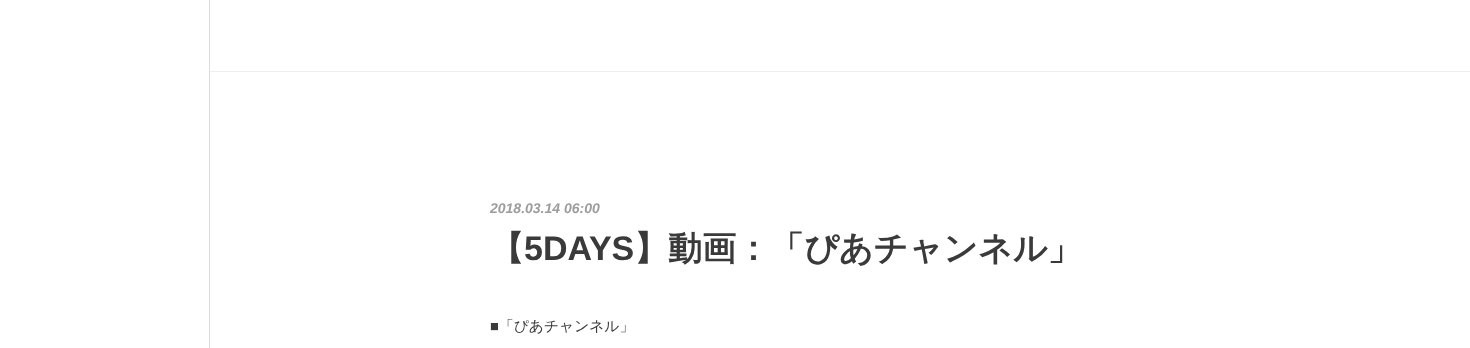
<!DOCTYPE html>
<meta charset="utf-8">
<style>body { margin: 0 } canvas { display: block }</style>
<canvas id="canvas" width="1470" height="348"></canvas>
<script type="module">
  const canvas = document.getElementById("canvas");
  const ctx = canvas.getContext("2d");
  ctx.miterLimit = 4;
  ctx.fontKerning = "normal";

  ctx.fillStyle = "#ffffff";
  ctx.fillRect(0, 0, 1470, 348);
  ctx.fillStyle = "#dcdcdc";
  ctx.fillRect(209, 0, 1, 348);
  ctx.fillStyle = "#eeeeee";
  ctx.fillRect(210, 71, 1260, 1);
  ctx.font = "italic bold 14px Liberation Sans";
  ctx.fillStyle = "#9d9d9d";
  ctx.fillText("2018.03.14 06:00", 490, 213);
  ctx.font = "bold 34px WenQuanYi Zen Hei";
  ctx.fillStyle = "#3a3a3a";
  ctx.fillText("【", 490, 260);
  ctx.font = "bold 34px Liberation Sans";
  ctx.fillText("5DAYS", 524, 260);
  ctx.font = "bold 34px WenQuanYi Zen Hei";
  ctx.fillText("】動画：「ぴあチャンネル」", 634, 260);
  ctx.font = "14.75px Liberation Sans";
  ctx.fillText("■", 490, 331);
  ctx.font = "500 14.75px WenQuanYi Zen Hei";
  ctx.fillText("「ぴあチャンネル」", 499, 331);
</script>
